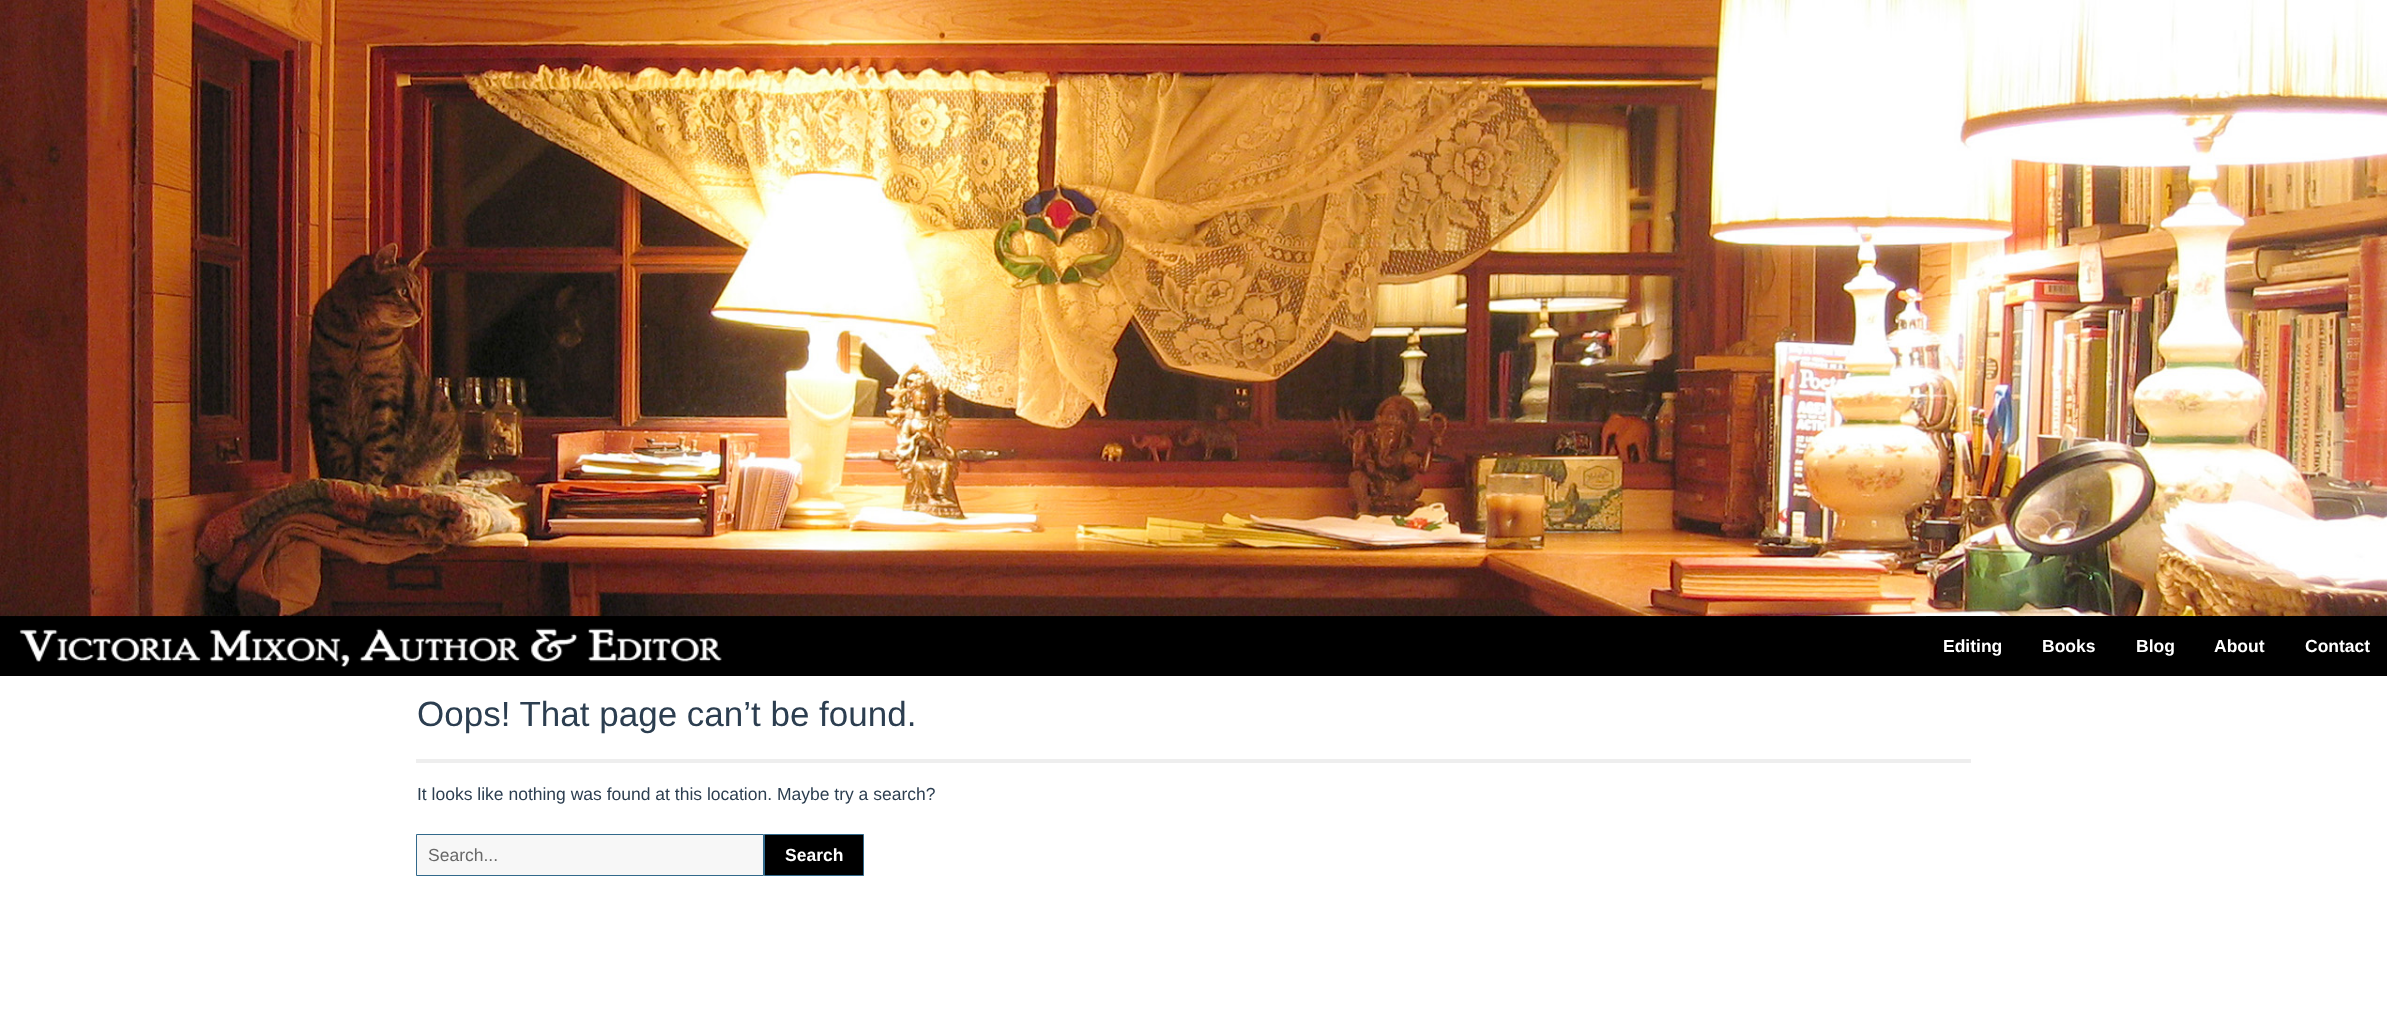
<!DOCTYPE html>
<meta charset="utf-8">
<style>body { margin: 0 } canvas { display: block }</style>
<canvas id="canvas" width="2387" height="1012"></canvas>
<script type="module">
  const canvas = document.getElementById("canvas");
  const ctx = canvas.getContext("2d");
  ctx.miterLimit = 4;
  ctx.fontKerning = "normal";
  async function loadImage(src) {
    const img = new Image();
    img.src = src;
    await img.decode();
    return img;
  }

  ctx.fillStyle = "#ffffff";
  ctx.fillRect(0, 0, 2387, 1012);
  ctx.fillStyle = "#000000";
  ctx.fillRect(0, 616, 2288, 60);
  ctx.drawImage(await loadImage("img1.png"), 0, 0, 2387, 617);
  ctx.drawImage(await loadImage("img2.png"), 19, 628, 703, 39);
  ctx.fillRect(1926, 616, 94, 1);
  ctx.font = "bold 17.5px Liberation Sans";
  ctx.fillStyle = "#ffffff";
  ctx.fillText("Editing", 1943, 652);
  ctx.fillStyle = "#000000";
  ctx.fillRect(2025, 616, 89, 1);
  ctx.fillStyle = "#ffffff";
  ctx.fillText("Books", 2042, 652);
  ctx.fillStyle = "#000000";
  ctx.fillRect(2119, 616, 74, 1);
  ctx.fillStyle = "#ffffff";
  ctx.fillText("Blog", 2136, 652);
  ctx.fillStyle = "#000000";
  ctx.fillRect(2198, 616, 85, 1);
  ctx.fillStyle = "#ffffff";
  ctx.fillText("About", 2214, 652);
  ctx.fillStyle = "#000000";
  ctx.fillRect(2288, 616, 99, 60);
  ctx.fillStyle = "#ffffff";
  ctx.fillText("Contact", 2305, 652);
  ctx.fillStyle = "#eeeeee";
  ctx.fillRect(416, 759, 1555, 4);
  ctx.font = "35px Liberation Sans";
  ctx.fillStyle = "#2c3e50";
  ctx.fillText("Oops! That page can’t be found.", 417, 726);
  ctx.font = "17.5px Liberation Sans";
  ctx.fillText("It looks like nothing was found at this location. Maybe try a search?", 417, 800);
  ctx.fillStyle = "#f7f7f7";
  ctx.beginPath();
  ctx.rect(416.5, 834.5, 347, 41);
  ctx.fill();
  ctx.strokeStyle = "#32698b";
  ctx.stroke();
  ctx.fillStyle = "#686868";
  ctx.fillText("Search...", 428, 861);
  ctx.fillStyle = "#000000";
  ctx.beginPath();
  ctx.rect(764.5, 834.5, 99, 41);
  ctx.fill();
  ctx.stroke();
  ctx.font = "bold 17.5px Liberation Sans";
  ctx.fillStyle = "#ffffff";
  ctx.fillText("Search", 785, 861);
</script>
